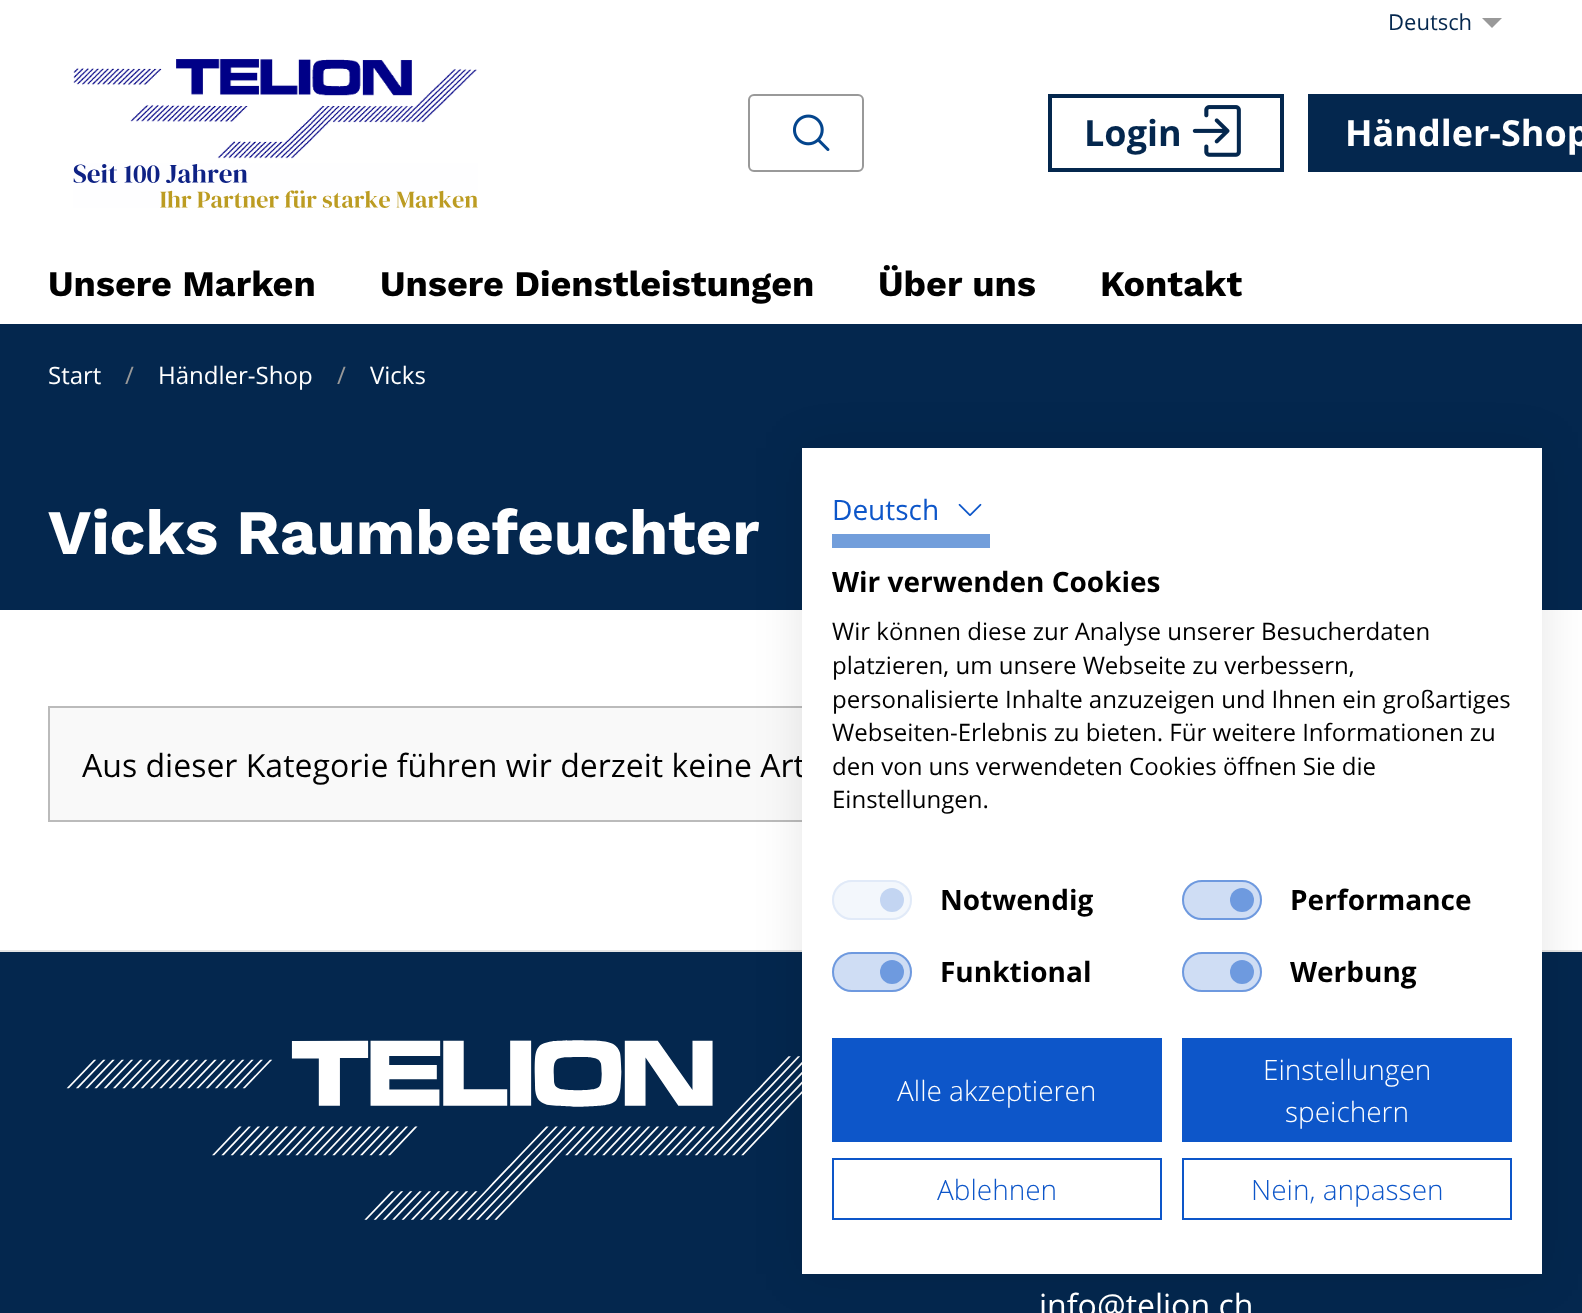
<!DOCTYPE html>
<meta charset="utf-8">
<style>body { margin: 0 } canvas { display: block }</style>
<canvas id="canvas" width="1582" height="1313"></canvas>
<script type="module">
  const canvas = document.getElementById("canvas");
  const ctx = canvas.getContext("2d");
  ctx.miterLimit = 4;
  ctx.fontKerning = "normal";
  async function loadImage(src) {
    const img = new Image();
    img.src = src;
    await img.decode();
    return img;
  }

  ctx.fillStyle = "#ffffff";
  ctx.fillRect(0, 0, 1582, 1313);
  ctx.font = "22px Open Sans";
  ctx.fillStyle = "#04274e";
  ctx.fillText("Deutsch", 1388, 30);
  ctx.fillStyle = "#999999";
  ctx.beginPath();
  ctx.moveTo(1482, 18);
  ctx.lineTo(1502, 18);
  ctx.lineTo(1492, 28);
  ctx.closePath();
  ctx.fill();
  ctx.drawImage(await loadImage("img1.png"), 73, 59, 405, 149);
  ctx.beginPath();
  ctx.roundRect(749, 95, 114, 76, 5);
  ctx.strokeStyle = "#999999";
  ctx.lineWidth = 2;
  ctx.stroke();
  ctx.drawImage(await loadImage("img2.png"), 793, 114, 37, 37);
  ctx.strokeStyle = "#04274e";
  ctx.lineWidth = 4;
  ctx.strokeRect(1050, 96, 232, 74);
  ctx.font = "bold 36px Open Sans";
  ctx.fillStyle = "#04274e";
  ctx.fillText("Login", 1084, 146);
  ctx.drawImage(await loadImage("img3.png"), 1192, 105, 49, 52);
  ctx.fillRect(1308, 94, 274, 78);
  ctx.fillStyle = "#ffffff";
  ctx.fillText("Händler-Shop", 1345, 146);
  ctx.font = "bold 36px Work Sans";
  ctx.fillStyle = "#000000";
  ctx.fillText("Unsere Marken", 48, 296);
  ctx.fillText("Unsere Dienstleistungen", 380, 296);
  ctx.fillText("Über uns", 878, 296);
  ctx.fillText("Kontakt", 1100, 296);
  ctx.fillStyle = "#04274e";
  ctx.fillRect(0, 324, 1582, 286);
  ctx.font = "24px Open Sans";
  ctx.fillStyle = "#ffffff";
  ctx.fillText("Start", 48, 384);
  ctx.fillStyle = "#999999";
  ctx.fillText("/", 125, 384);
  ctx.fillStyle = "#ffffff";
  ctx.fillText("Händler-Shop", 158, 384);
  ctx.fillStyle = "#999999";
  ctx.fillText("/", 337, 384);
  ctx.fillStyle = "#ffffff";
  ctx.fillText("Vicks", 370, 384);
  ctx.font = "bold 63.25px Work Sans";
  ctx.fillText("Vicks Raumbefeuchter", 48, 554);
  ctx.fillStyle = "#f9f9f9";
  ctx.fillRect(50, 708, 752, 112);
  ctx.strokeStyle = "#bbbbbb";
  ctx.lineWidth = 2;
  ctx.strokeRect(49, 707, 1484, 114);
  ctx.font = "32px Open Sans";
  ctx.fillStyle = "#000000";
  ctx.fillText("Aus dieser Kategorie führen wir derzeit keine Art", 82, 777);
  ctx.fillStyle = "#04274e";
  ctx.fillRect(0, 952, 1582, 361);
  ctx.fillStyle = "#e5e5e5";
  ctx.fillRect(0, 950, 1582, 2);
  ctx.drawImage(await loadImage("img5.png"), 66, 1040, 736, 180);
  ctx.fillStyle = "rgba(0, 0, 0, 0.1)";
  ctx.filter = "blur(24px)";
  ctx.beginPath();
  ctx.rect(802, 448, 740, 826);
  ctx.fill();
  ctx.filter = "none";
  ctx.fillStyle = "#ffffff";
  ctx.fillRect(802, 448, 740, 826);
  ctx.font = "28px Open Sans";
  ctx.fillStyle = "#0d56c9";
  ctx.fillText("Deutsch", 832, 520);
  ctx.drawImage(await loadImage("img4.png"), 958, 503, 24, 13);
  ctx.fillStyle = "#729edb";
  ctx.fillRect(832, 534, 158, 14);
  ctx.font = "bold 28px Open Sans";
  ctx.fillStyle = "#000000";
  ctx.fillText("Wir verwenden Cookies", 832, 592);
  ctx.font = "24px Open Sans";
  ctx.fillText("Wir können diese zur Analyse unserer Besucherdaten", 832, 640);
  ctx.fillText("platzieren, um unsere Webseite zu verbessern,", 832, 674);
  ctx.fillText("personalisierte Inhalte anzuzeigen und Ihnen ein großartiges", 832, 708);
  ctx.fillText("Webseiten-Erlebnis zu bieten. Für weitere Informationen zu", 832, 741);
  ctx.fillText("den von uns verwendeten Cookies öffnen Sie die", 832, 775);
  ctx.fillText("Einstellungen.", 832, 808);
  ctx.fillStyle = "#f3f7fc";
  ctx.beginPath();
  ctx.roundRect(832, 880, 80, 40, 20);
  ctx.fill();
  ctx.fillStyle = "#c3d5f2";
  ctx.beginPath();
  ctx.arc(892, 900, 12, 0, Math.PI * 2);
  ctx.fill();
  ctx.beginPath();
  ctx.roundRect(833, 881, 78, 38, 19);
  ctx.strokeStyle = "#e1eaf8";
  ctx.stroke();
  ctx.font = "bold 28px Open Sans";
  ctx.fillStyle = "#000000";
  ctx.fillText("Notwendig", 940, 910);
  ctx.fillStyle = "#cfddf4";
  ctx.beginPath();
  ctx.roundRect(1182, 880, 80, 40, 20);
  ctx.fill();
  ctx.fillStyle = "#6e9adf";
  ctx.beginPath();
  ctx.arc(1242, 900, 12, 0, Math.PI * 2);
  ctx.fill();
  ctx.beginPath();
  ctx.roundRect(1183, 881, 78, 38, 19);
  ctx.strokeStyle = "rgba(13, 86, 201, 0.5)";
  ctx.stroke();
  ctx.fillStyle = "#000000";
  ctx.fillText("Performance", 1290, 910);
  ctx.fillStyle = "#cfddf4";
  ctx.beginPath();
  ctx.roundRect(832, 952, 80, 40, 20);
  ctx.fill();
  ctx.fillStyle = "#6e9adf";
  ctx.beginPath();
  ctx.arc(892, 972, 12, 0, Math.PI * 2);
  ctx.fill();
  ctx.beginPath();
  ctx.roundRect(833, 953, 78, 38, 19);
  ctx.stroke();
  ctx.fillStyle = "#000000";
  ctx.fillText("Funktional", 940, 982);
  ctx.fillStyle = "#cfddf4";
  ctx.beginPath();
  ctx.roundRect(1182, 952, 80, 40, 20);
  ctx.fill();
  ctx.fillStyle = "#6e9adf";
  ctx.beginPath();
  ctx.arc(1242, 972, 12, 0, Math.PI * 2);
  ctx.fill();
  ctx.beginPath();
  ctx.roundRect(1183, 953, 78, 38, 19);
  ctx.stroke();
  ctx.fillStyle = "#000000";
  ctx.fillText("Werbung", 1290, 982);
  ctx.fillStyle = "#0d56c9";
  ctx.fillRect(832, 1038, 330, 104);
  ctx.font = "300 28px Open Sans";
  ctx.fillStyle = "#ffffff";
  ctx.fillText("Alle akzeptieren", 897, 1101);
  ctx.fillStyle = "#0d56c9";
  ctx.fillRect(1182, 1038, 330, 104);
  ctx.fillStyle = "#ffffff";
  ctx.fillText("Einstellungen", 1263, 1080);
  ctx.fillText("speichern", 1285, 1122);
  ctx.strokeStyle = "#0d56c9";
  ctx.strokeRect(833, 1159, 328, 60);
  ctx.fillStyle = "#0d56c9";
  ctx.fillText("Ablehnen", 937, 1200);
  ctx.strokeRect(1183, 1159, 328, 60);
  ctx.fillText("Nein, anpassen", 1251, 1200);
  ctx.font = "32px Open Sans";
  ctx.fillStyle = "#ffffff";
  ctx.fillText("info@telion.ch", 1039, 1317);
</script>
